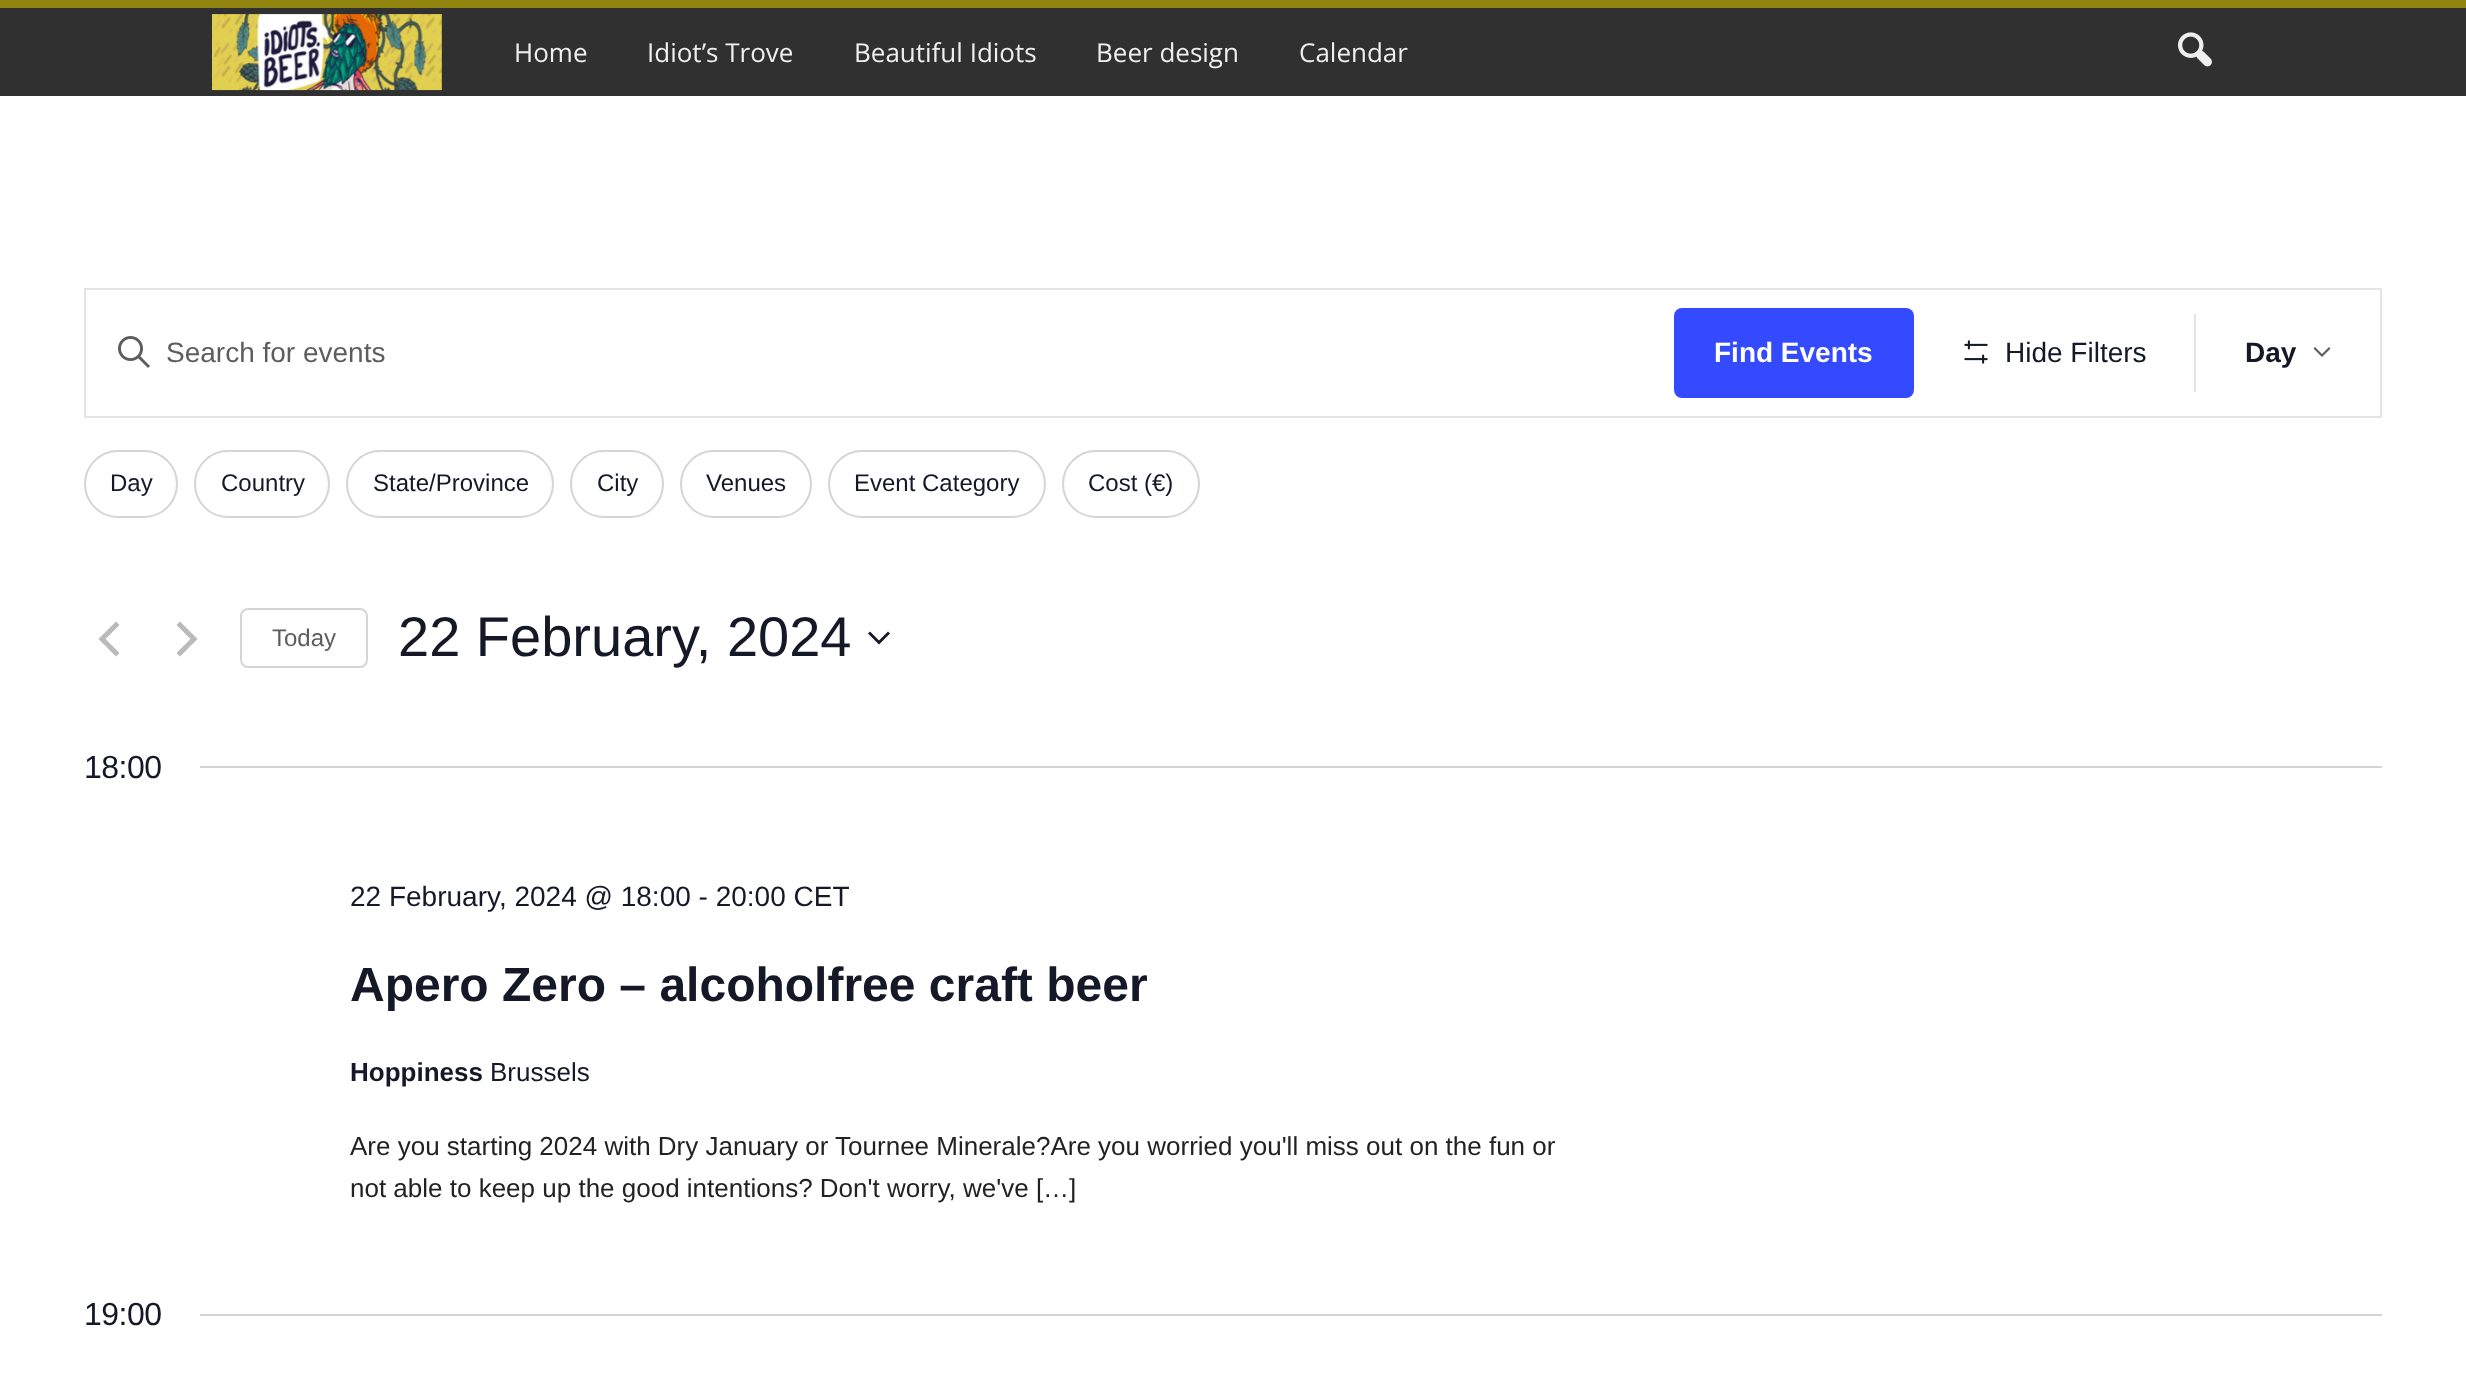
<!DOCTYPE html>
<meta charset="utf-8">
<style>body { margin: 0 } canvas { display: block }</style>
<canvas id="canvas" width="2466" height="1400"></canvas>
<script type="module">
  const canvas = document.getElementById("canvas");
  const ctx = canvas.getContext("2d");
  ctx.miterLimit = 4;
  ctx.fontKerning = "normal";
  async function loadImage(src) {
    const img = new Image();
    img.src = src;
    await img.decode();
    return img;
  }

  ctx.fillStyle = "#ffffff";
  ctx.fillRect(0, 0, 2466, 1400);
  ctx.fillStyle = "#303030";
  ctx.fillRect(0, 8, 2466, 88);
  ctx.fillStyle = "#91840e";
  ctx.fillRect(0, 0, 2466, 8);
  ctx.drawImage(await loadImage("img1.png"), 212, 14, 230, 77);
  ctx.font = "26px Open Sans";
  ctx.fillStyle = "#efefef";
  ctx.fillText("Home", 514, 62);
  ctx.fillText("Idiot’s Trove", 647, 62);
  ctx.fillText("Beautiful Idiots", 854, 62);
  ctx.fillText("Beer design", 1096, 62);
  ctx.fillText("Calendar", 1299, 62);
  ctx.drawImage(await loadImage("img2.png"), 2178, 32, 34, 35);
  ctx.strokeStyle = "#e4e4e4";
  ctx.lineWidth = 2;
  ctx.strokeRect(85, 289, 2296, 128);
  ctx.drawImage(await loadImage("img3.png"), 118, 336, 32, 32);
  ctx.font = "28px Liberation Sans";
  ctx.fillStyle = "#5d5d5d";
  ctx.fillText("Search for events", 166, 362);
  ctx.fillStyle = "#334aff";
  ctx.beginPath();
  ctx.roundRect(1674, 308, 240, 90, 8);
  ctx.fill();
  ctx.font = "bold 28px Liberation Sans";
  ctx.fillStyle = "#ffffff";
  ctx.fillText("Find Events", 1714, 362);
  ctx.fillStyle = "#e4e4e4";
  ctx.fillRect(2194, 314, 2, 78);
  ctx.drawImage(await loadImage("img4.png"), 1964, 340, 24, 24);
  ctx.font = "28px Liberation Sans";
  ctx.fillStyle = "#141827";
  ctx.fillText("Hide Filters", 2005, 362);
  ctx.font = "bold 28px Liberation Sans";
  ctx.fillText("Day", 2245, 362);
  ctx.fillStyle = "#5d5d5d";
  ctx.beginPath();
  ctx.moveTo(2315, 347);
  ctx.lineTo(2322, 354);
  ctx.lineTo(2329, 347);
  ctx.lineTo(2330.5, 348.5);
  ctx.lineTo(2322, 357);
  ctx.lineTo(2313.5, 348.5);
  ctx.closePath();
  ctx.fill("evenodd");
  ctx.beginPath();
  ctx.roundRect(85, 451, 92, 66, 33);
  ctx.strokeStyle = "#d5d5d5";
  ctx.stroke();
  ctx.font = "24px Liberation Sans";
  ctx.fillStyle = "#141827";
  ctx.fillText("Day", 110, 491);
  ctx.beginPath();
  ctx.roundRect(195, 451, 134, 66, 33);
  ctx.stroke();
  ctx.fillText("Country", 221, 491);
  ctx.beginPath();
  ctx.roundRect(347, 451, 206, 66, 33);
  ctx.stroke();
  ctx.fillText("State/Province", 373, 491);
  ctx.beginPath();
  ctx.roundRect(571, 451, 92, 66, 33);
  ctx.stroke();
  ctx.fillText("City", 597, 491);
  ctx.beginPath();
  ctx.roundRect(681, 451, 130, 66, 33);
  ctx.stroke();
  ctx.fillText("Venues", 706, 491);
  ctx.beginPath();
  ctx.roundRect(829, 451, 216, 66, 33);
  ctx.stroke();
  ctx.fillText("Event Category", 854, 491);
  ctx.beginPath();
  ctx.roundRect(1063, 451, 136, 66, 33);
  ctx.stroke();
  ctx.fillText("Cost (€)", 1088, 491);
  ctx.fillStyle = "#bababa";
  ctx.beginPath();
  ctx.moveTo(119.5, 653);
  ctx.lineTo(116, 656.5);
  ctx.lineTo(98.5, 639);
  ctx.lineTo(116, 621.5);
  ctx.lineTo(119.5, 625);
  ctx.lineTo(105.5, 639);
  ctx.closePath();
  ctx.fill();
  ctx.beginPath();
  ctx.moveTo(176.5, 625);
  ctx.lineTo(180, 621.5);
  ctx.lineTo(197.5, 639);
  ctx.lineTo(180, 656.5);
  ctx.lineTo(176.5, 653);
  ctx.lineTo(190.5, 639);
  ctx.closePath();
  ctx.fill();
  ctx.beginPath();
  ctx.roundRect(241, 609, 126, 58, 7);
  ctx.stroke();
  ctx.fillStyle = "#5d5d5d";
  ctx.fillText("Today", 272, 646);
  ctx.font = "56px Liberation Sans";
  ctx.fillStyle = "#141827";
  ctx.fillText("22 February, 2024", 398, 656);
  ctx.beginPath();
  ctx.moveTo(870, 631.5);
  ctx.lineTo(879, 640.5);
  ctx.lineTo(888, 631.5);
  ctx.lineTo(890, 633.5);
  ctx.lineTo(879, 644.5);
  ctx.lineTo(868, 633.5);
  ctx.closePath();
  ctx.fill("evenodd");
  ctx.letterSpacing = "-0.5px";
  ctx.font = "32px Liberation Sans";
  ctx.fillText("18:00", 84, 778);
  ctx.fillStyle = "#d5d5d5";
  ctx.fillRect(200, 766, 2182, 2);
  ctx.letterSpacing = "0px";
  ctx.font = "28px Liberation Sans";
  ctx.fillStyle = "#141827";
  ctx.fillText("22 February, 2024 @ 18:00 - 20:00 CET", 350, 906);
  ctx.font = "bold 48px Liberation Sans";
  ctx.fillText("Apero Zero – alcoholfree craft beer", 350, 1001);
  ctx.font = "bold 26px Liberation Sans";
  ctx.fillText("Hoppiness", 350, 1081);
  ctx.font = "26px Liberation Sans";
  ctx.fillText("Brussels", 490, 1081);
  ctx.fillStyle = "#222222";
  ctx.fillText("Are you starting 2024 with Dry January or Tournee Minerale?Are you worried you'll miss out on the fun or", 350, 1155);
  ctx.fillText("not able to keep up the good intentions? Don't worry, we've […]", 350, 1197);
  ctx.letterSpacing = "-0.5px";
  ctx.font = "32px Liberation Sans";
  ctx.fillStyle = "#141827";
  ctx.fillText("19:00", 84, 1325);
  ctx.fillStyle = "#d5d5d5";
  ctx.fillRect(200, 1314, 2182, 2);
</script>
